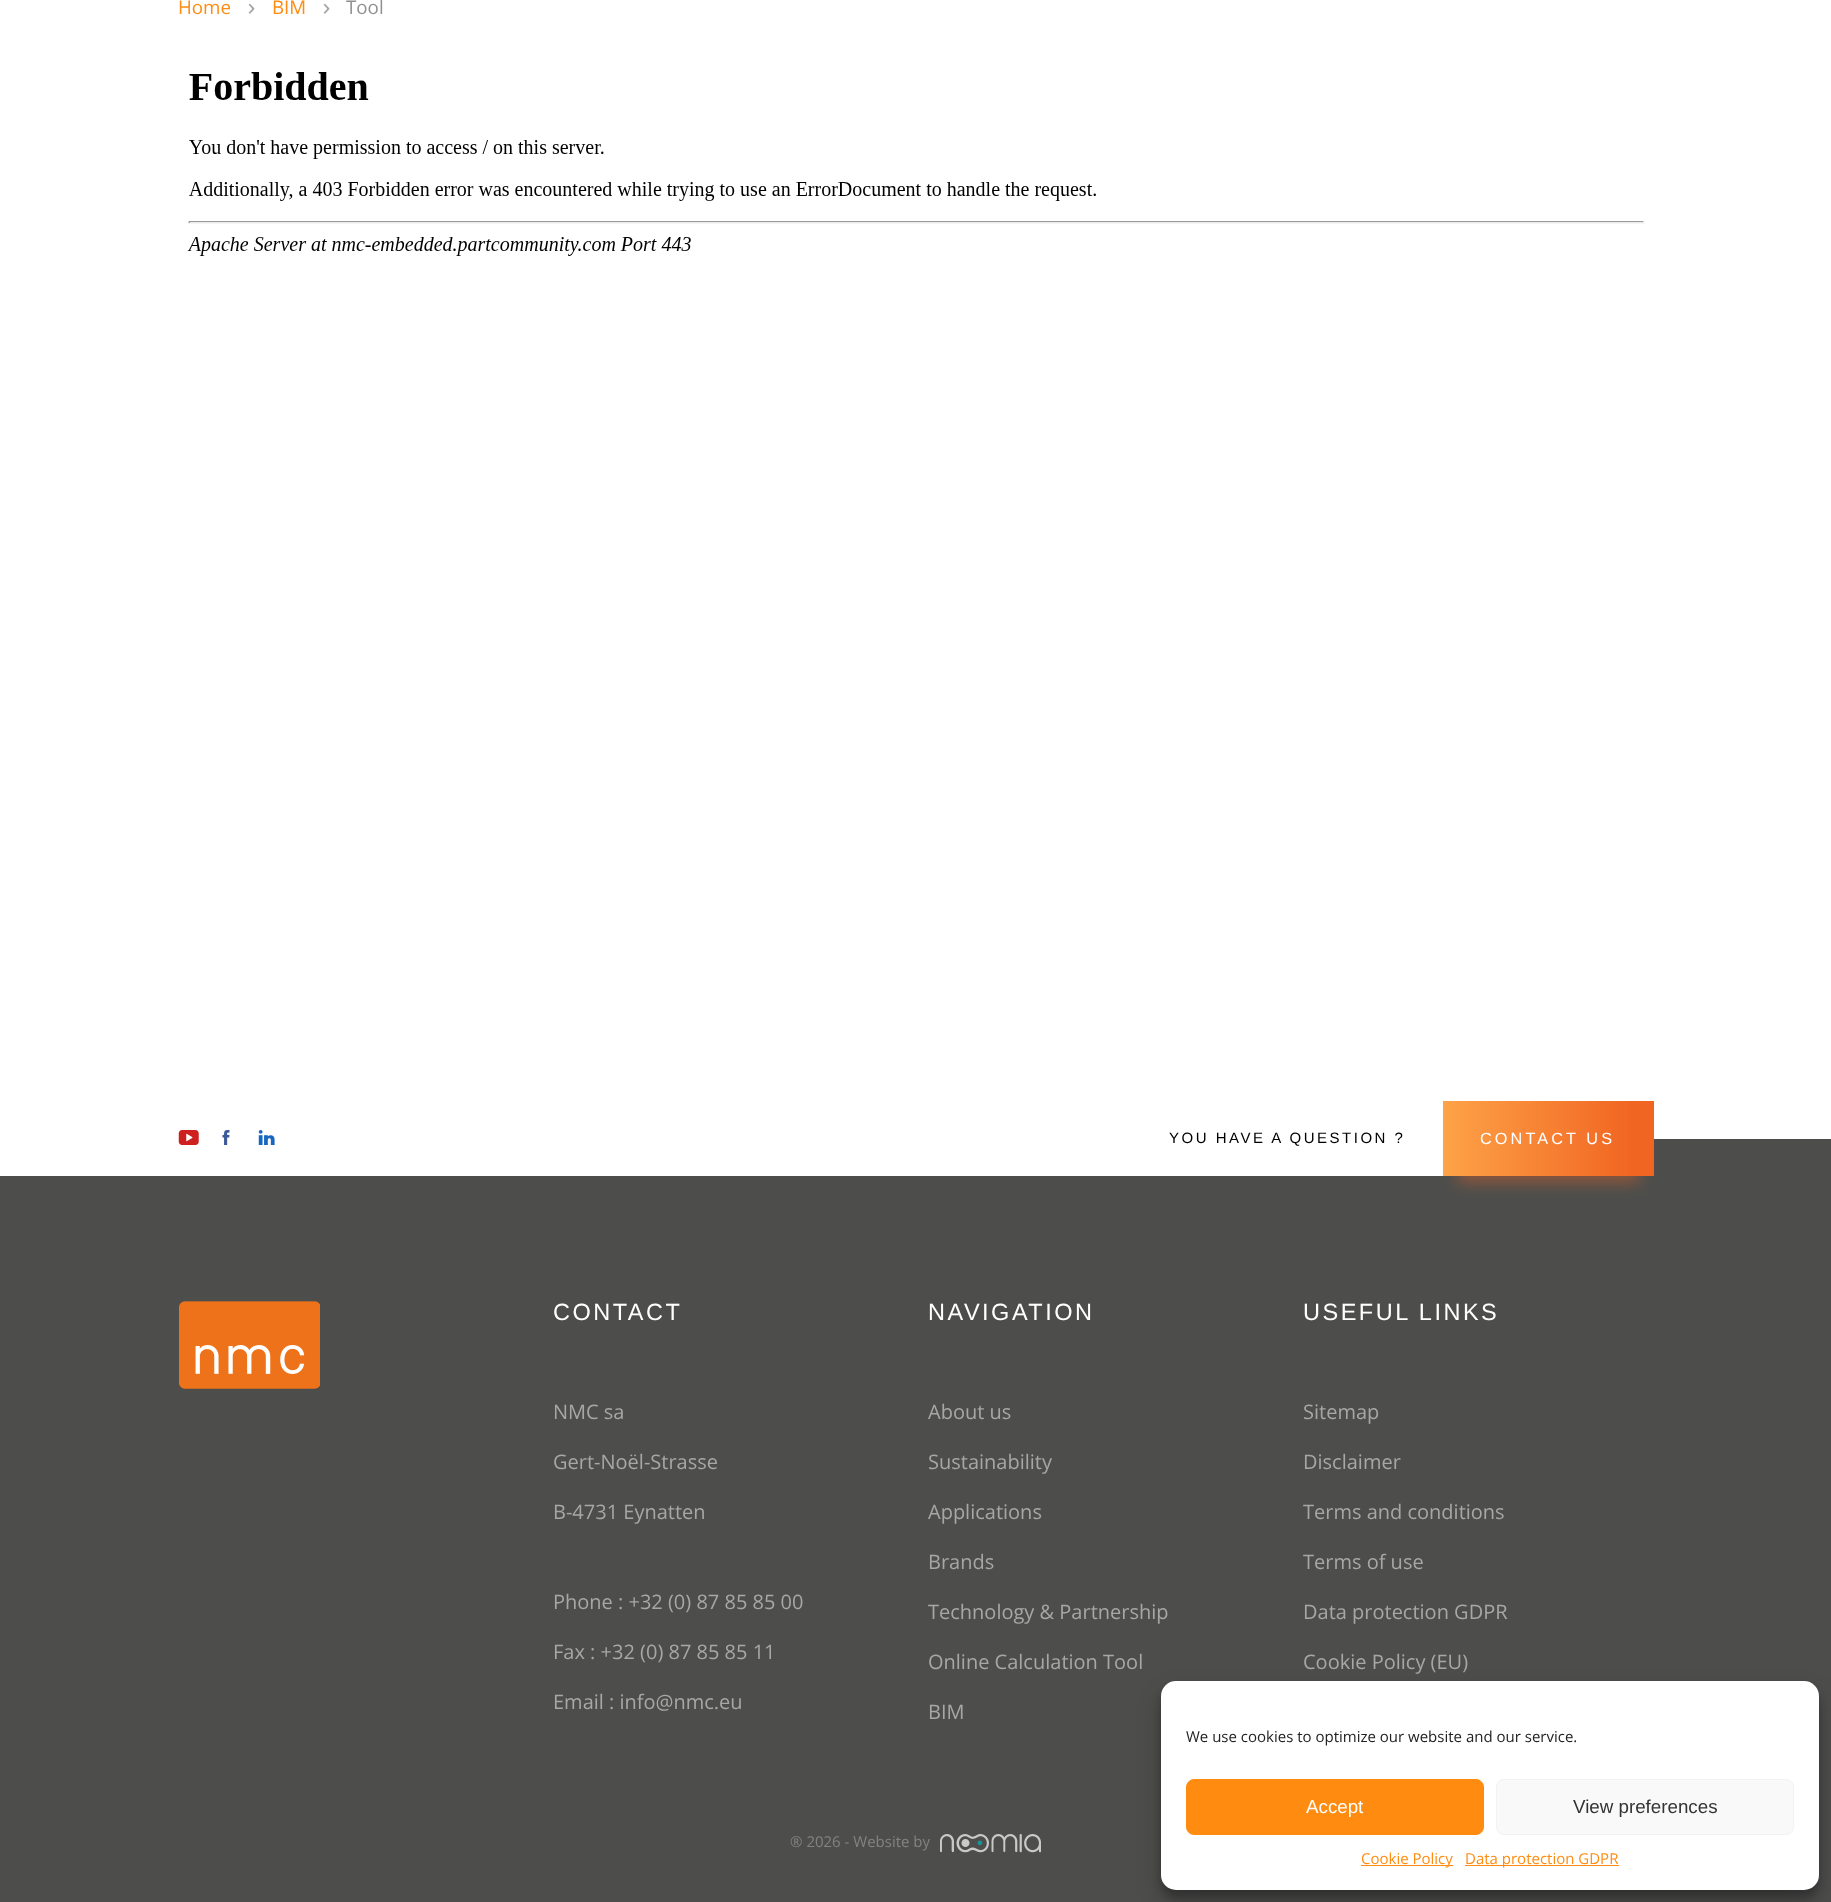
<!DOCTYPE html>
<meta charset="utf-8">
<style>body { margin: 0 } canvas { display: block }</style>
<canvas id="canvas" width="1831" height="1902"></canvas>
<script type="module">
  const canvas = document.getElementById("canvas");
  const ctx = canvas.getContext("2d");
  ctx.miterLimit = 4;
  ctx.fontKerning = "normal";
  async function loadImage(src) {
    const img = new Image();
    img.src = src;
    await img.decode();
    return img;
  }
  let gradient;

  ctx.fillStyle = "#ffffff";
  ctx.fillRect(0, 0, 1831, 1902);
  ctx.font = "18.75px Open Sans";
  ctx.fillStyle = "#ff8c10";
  ctx.fillText("Home", 178, 14);
  ctx.drawImage(await loadImage("img1.png"), 248, 3, 7, 11);
  ctx.fillText("BIM", 272, 14);
  ctx.drawImage(await loadImage("img1.png"), 323, 3, 7, 11);
  ctx.fillStyle = "#909092";
  ctx.fillText("Tool", 346, 14);
  ctx.drawImage(await loadImage("img2.png"), 187, 72, 1457, 184);
  ctx.fillStyle = "#4d4e4c";
  ctx.fillRect(0, 1139, 1831, 763);
  ctx.fillStyle = "#ffffff";
  ctx.fillRect(0, 1139, 1443, 37);
  ctx.drawImage(await loadImage("img3.png"), 178, 1130, 21, 15);
  ctx.drawImage(await loadImage("img4.png"), 222, 1130, 8, 15);
  ctx.drawImage(await loadImage("img5.png"), 258, 1130, 17, 15);
  ctx.letterSpacing = "2.5px";
  ctx.font = "15px Liberation Sans";
  ctx.fillStyle = "#000000";
  ctx.fillText("YOU HAVE A QUESTION ?", 1169, 1143);
  ctx.fillStyle = "rgba(241, 101, 34, 0.4)";
  ctx.filter = "blur(7.5px)";
  ctx.beginPath();
  ctx.rect(1458, 1138, 181, 45);
  ctx.fill();
  ctx.filter = "none";
  gradient = ctx.createLinearGradient(1316, 1139, 1738, 1139);
  gradient.addColorStop(0.25, "#ffaa4c");
  gradient.addColorStop(0.75, "#f16522");
  ctx.fillStyle = gradient;
  ctx.fillRect(1443, 1101, 211, 75);
  ctx.letterSpacing = "3.1px";
  ctx.font = "16.25px Liberation Sans";
  ctx.fillStyle = "#ffffff";
  ctx.fillText("CONTACT US", 1480, 1144);
  ctx.drawImage(await loadImage("img6.png"), 179, 1301, 141, 88);
  ctx.letterSpacing = "2.5px";
  ctx.font = "23.5px Liberation Sans";
  ctx.fillText("CONTACT", 553, 1320);
  ctx.letterSpacing = "0px";
  ctx.font = "20px Open Sans";
  ctx.fillStyle = "#a6a7a6";
  ctx.fillText("NMC sa", 553, 1419);
  ctx.fillText("Gert-Noël-Strasse", 553, 1469);
  ctx.fillText("B-4731 Eynatten", 553, 1519);
  ctx.fillText("Phone : +32 (0) 87 85 85 00", 553, 1609);
  ctx.fillText("Fax : +32 (0) 87 85 85 11", 553, 1659);
  ctx.fillText("Email : info@nmc.eu", 553, 1709);
  ctx.letterSpacing = "2.5px";
  ctx.font = "23.5px Liberation Sans";
  ctx.fillStyle = "#ffffff";
  ctx.fillText("NAVIGATION", 928, 1320);
  ctx.letterSpacing = "0px";
  ctx.font = "20px Open Sans";
  ctx.fillStyle = "#a6a7a6";
  ctx.fillText("About us", 928, 1419);
  ctx.fillText("Sustainability", 928, 1469);
  ctx.fillText("Applications", 928, 1519);
  ctx.fillText("Brands", 928, 1569);
  ctx.fillText("Technology & Partnership", 928, 1619);
  ctx.fillText("Online Calculation Tool", 928, 1669);
  ctx.fillText("BIM", 928, 1719);
  ctx.letterSpacing = "2.5px";
  ctx.font = "23.5px Liberation Sans";
  ctx.fillStyle = "#ffffff";
  ctx.fillText("USEFUL LINKS", 1303, 1320);
  ctx.letterSpacing = "0px";
  ctx.font = "20px Open Sans";
  ctx.fillStyle = "#a6a7a6";
  ctx.fillText("Sitemap", 1303, 1419);
  ctx.fillText("Disclaimer", 1303, 1469);
  ctx.fillText("Terms and conditions", 1303, 1519);
  ctx.fillText("Terms of use", 1303, 1569);
  ctx.fillText("Data protection GDPR", 1303, 1619);
  ctx.fillText("Cookie Policy (EU)", 1303, 1669);
  ctx.font = "15px Open Sans";
  ctx.fillStyle = "#828382";
  ctx.fillText("® 2026 - Website by", 790, 1847);
  ctx.drawImage(await loadImage("img7.png"), 940, 1834, 101, 19);
  ctx.fillStyle = "rgba(0, 0, 0, 0.23)";
  ctx.filter = "blur(4px)";
  ctx.beginPath();
  ctx.roundRect(1161, 1689, 658, 209, 15);
  ctx.fill();
  ctx.filter = "none";
  ctx.fillStyle = "rgba(0, 0, 0, 0.19)";
  ctx.filter = "blur(12.5px)";
  ctx.beginPath();
  ctx.roundRect(1161, 1694, 658, 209, 15);
  ctx.fill();
  ctx.filter = "none";
  ctx.fillStyle = "#ffffff";
  ctx.beginPath();
  ctx.roundRect(1161, 1681, 658, 209, 15);
  ctx.fill();
  ctx.fillStyle = "#222222";
  ctx.fillText("We use cookies to optimize our website and our service.", 1186, 1742);
  ctx.fillStyle = "#ff8c10";
  ctx.beginPath();
  ctx.roundRect(1186.5, 1779.5, 297, 55, 7.5);
  ctx.fill();
  ctx.strokeStyle = "#ff8c10";
  ctx.stroke();
  ctx.font = "18.75px Liberation Sans";
  ctx.fillStyle = "#ffffff";
  ctx.fillText("Accept", 1306, 1813);
  ctx.fillStyle = "#f9f9f9";
  ctx.beginPath();
  ctx.roundRect(1496.5, 1779.5, 297, 55, 7.5);
  ctx.fill();
  ctx.strokeStyle = "#f2f2f2";
  ctx.stroke();
  ctx.fillStyle = "#333333";
  ctx.fillText("View preferences", 1573, 1813);
  ctx.fillStyle = "#ff8c10";
  ctx.fillRect(1361, 1865, 92, 1);
  ctx.font = "15px Open Sans";
  ctx.fillText("Cookie Policy", 1361, 1864);
  ctx.fillRect(1465, 1865, 154, 1);
  ctx.fillText("Data protection GDPR", 1465, 1864);
</script>
